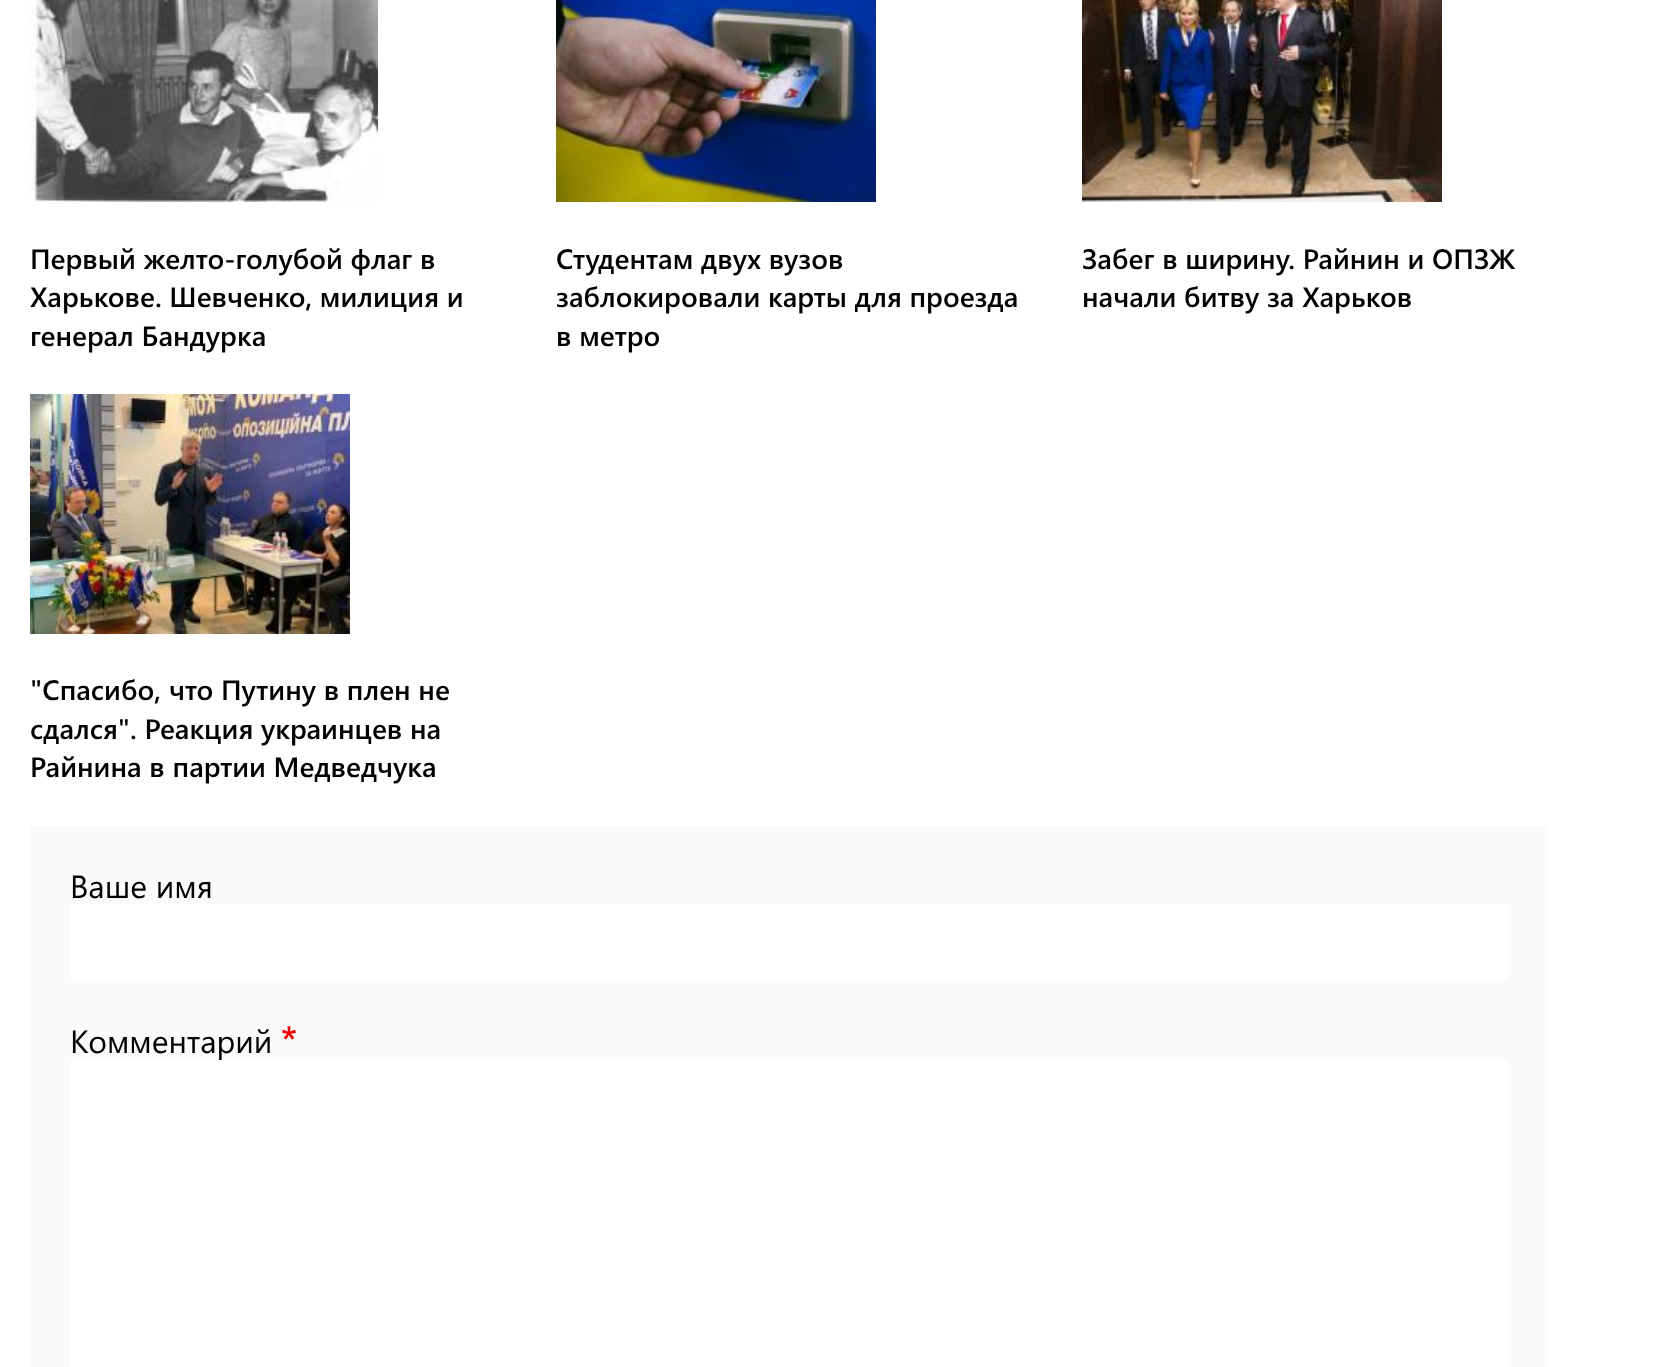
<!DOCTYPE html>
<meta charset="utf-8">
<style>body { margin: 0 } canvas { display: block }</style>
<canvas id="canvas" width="1678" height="1367"></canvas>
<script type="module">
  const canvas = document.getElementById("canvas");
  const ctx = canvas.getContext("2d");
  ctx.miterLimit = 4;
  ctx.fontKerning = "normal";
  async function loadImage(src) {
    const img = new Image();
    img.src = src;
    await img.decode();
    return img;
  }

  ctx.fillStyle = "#ffffff";
  ctx.fillRect(0, 0, 1678, 1367);
  ctx.drawImage(await loadImage("img1.png"), 30, 0, 348, 202);
  ctx.font = "600 28px Segoe UI";
  ctx.fillStyle = "#000000";
  ctx.fillText("Первый желто-голубой флаг в", 30, 269);
  ctx.fillText("Харькове. Шевченко, милиция и", 30, 307);
  ctx.fillText("генерал Бандурка", 30, 346);
  ctx.drawImage(await loadImage("img2.png"), 556, 0, 320, 202);
  ctx.fillText("Студентам двух вузов", 556, 269);
  ctx.fillText("заблокировали карты для проезда", 556, 307);
  ctx.fillText("в метро", 556, 346);
  ctx.drawImage(await loadImage("img3.png"), 1082, 0, 360, 202);
  ctx.fillText("Забег в ширину. Райнин и ОПЗЖ", 1082, 269);
  ctx.fillText("начали битву за Харьков", 1082, 307);
  ctx.drawImage(await loadImage("img4.png"), 30, 394, 320, 240);
  ctx.fillText("\"Спасибо, что Путину в плен не", 30, 700);
  ctx.fillText("сдался\". Реакция украинцев на", 30, 739);
  ctx.fillText("Райнина в партии Медведчука", 30, 777);
  ctx.fillStyle = "#fafafa";
  ctx.fillRect(30, 826, 1518, 541);
  ctx.font = "32px Segoe UI";
  ctx.fillStyle = "#000000";
  ctx.fillText("Ваше имя", 70, 898);
  ctx.fillStyle = "#ffffff";
  ctx.fillRect(70, 904, 1438, 76);
  ctx.fillStyle = "#000000";
  ctx.fillText("Комментарий", 70, 1053);
  ctx.drawImage(await loadImage("img5.png"), 282, 1026, 14, 14);
  ctx.fillStyle = "#ffffff";
  ctx.fillRect(70, 1060, 1438, 307);
</script>
